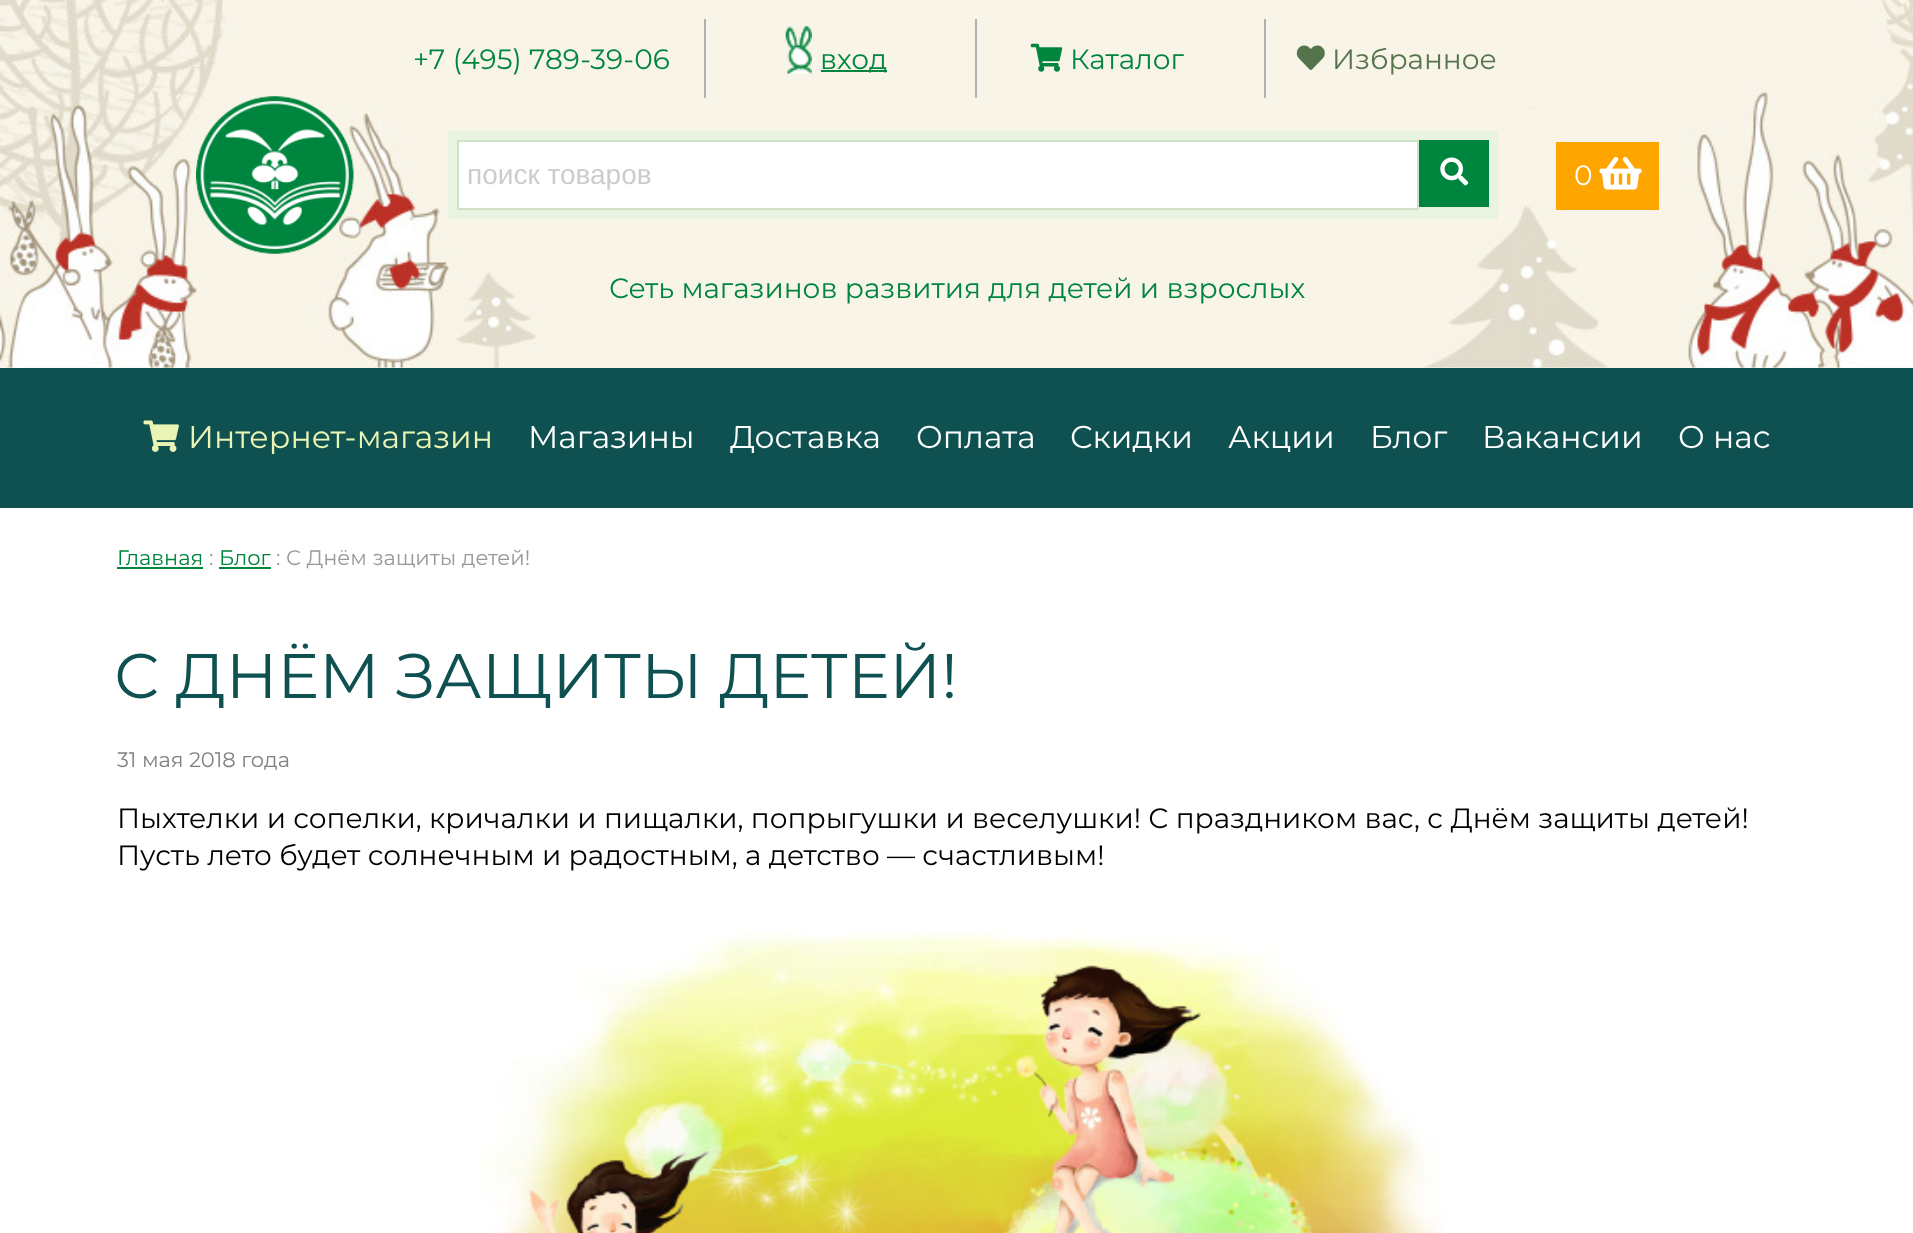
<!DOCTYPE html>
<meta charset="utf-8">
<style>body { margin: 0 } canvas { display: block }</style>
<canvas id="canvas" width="1913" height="1233"></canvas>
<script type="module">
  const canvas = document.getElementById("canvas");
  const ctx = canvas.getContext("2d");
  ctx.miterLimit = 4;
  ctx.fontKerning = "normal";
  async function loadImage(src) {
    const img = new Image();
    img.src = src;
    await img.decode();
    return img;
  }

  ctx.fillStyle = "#ffffff";
  ctx.fillRect(0, 0, 1913, 1233);
  ctx.fillStyle = "#f8f4e8";
  ctx.fillRect(0, 367, 1913, 1);
  ctx.drawImage(await loadImage("img1.png"), 0, 0, 1913, 368);
  ctx.font = "28px Montserrat";
  ctx.fillStyle = "#00853e";
  ctx.fillText("+7 (495) 789-39-06", 413, 69);
  ctx.fillStyle = "#b0b1b1";
  ctx.fillRect(704, 19, 2, 79);
  ctx.drawImage(await loadImage("img2.png"), 785, 26, 27, 48);
  ctx.fillStyle = "#00853e";
  ctx.fillRect(821, 70, 66, 2);
  ctx.fillText("вход", 820, 69);
  ctx.fillStyle = "#b0b1b1";
  ctx.fillRect(975, 19, 2, 79);
  ctx.drawImage(await loadImage("img3.png"), 1030, 43, 33, 29);
  ctx.fillStyle = "#00853e";
  ctx.fillText("Каталог", 1070, 69);
  ctx.fillStyle = "#b0b1b1";
  ctx.fillRect(1264, 19, 2, 79);
  ctx.drawImage(await loadImage("img4.png"), 1296, 45, 29, 25);
  ctx.fillStyle = "#56744c";
  ctx.fillText("Избранное", 1332, 69);
  ctx.drawImage(await loadImage("img5.png"), 196, 96, 158, 158);
  ctx.fillStyle = "#e8f3e2";
  ctx.fillRect(448, 131, 1050, 88);
  ctx.fillStyle = "#ffffff";
  ctx.beginPath();
  ctx.rect(458, 141, 960, 68);
  ctx.fill();
  ctx.strokeStyle = "#cfe2c6";
  ctx.lineWidth = 2;
  ctx.stroke();
  ctx.font = "28px Liberation Sans";
  ctx.fillStyle = "#cccccc";
  ctx.fillText("поиск товаров", 467, 184);
  ctx.fillStyle = "#00853e";
  ctx.fillRect(1419, 140, 70, 67);
  ctx.drawImage(await loadImage("img6.png"), 1440, 157, 29, 29);
  ctx.fillStyle = "#ffa500";
  ctx.fillRect(1556, 142, 103, 68);
  ctx.font = "28px Montserrat";
  ctx.fillStyle = "#ffffff";
  ctx.fillText("0", 1574, 185);
  ctx.drawImage(await loadImage("img7.png"), 1599, 156, 43, 34);
  ctx.fillStyle = "#00853e";
  ctx.fillText("Сеть магазинов развития для детей и взрослых", 609, 298);
  ctx.fillStyle = "#0e5150";
  ctx.fillRect(0, 368, 1913, 140);
  ctx.drawImage(await loadImage("img8.png"), 143, 420, 36, 32);
  ctx.font = "31.5px Montserrat";
  ctx.fillStyle = "#eaf4b5";
  ctx.fillText("Интернет-магазин", 188, 448);
  ctx.fillStyle = "#ffffff";
  ctx.fillText("Магазины", 528, 448);
  ctx.fillText("Доставка", 730, 448);
  ctx.fillText("Оплата", 916, 448);
  ctx.fillText("Скидки", 1070, 448);
  ctx.fillText("Акции", 1228, 448);
  ctx.fillText("Блог", 1370, 448);
  ctx.fillText("Вакансии", 1482, 448);
  ctx.fillText("О нас", 1678, 448);
  ctx.font = "21px Montserrat";
  ctx.fillStyle = "#00853e";
  ctx.fillText("Главная", 117, 565);
  ctx.fillRect(117, 567, 86, 2);
  ctx.fillStyle = "#999999";
  ctx.fillText(":", 209, 565);
  ctx.fillStyle = "#00853e";
  ctx.fillText("Блог", 219, 565);
  ctx.fillRect(219, 567, 52, 2);
  ctx.fillStyle = "#999999";
  ctx.fillText(": С Днём защиты детей!", 276, 565);
  ctx.font = "63px Montserrat";
  ctx.fillStyle = "#0e5150";
  ctx.fillText("С ДНЁМ ЗАЩИТЫ ДЕТЕЙ!", 114, 698);
  ctx.font = "21px Montserrat";
  ctx.fillStyle = "#818181";
  ctx.fillText("31 мая 2018 года", 117, 767);
  ctx.font = "28px Montserrat";
  ctx.fillStyle = "#000000";
  ctx.fillText("Пыхтелки и сопелки, кричалки и пищалки, попрыгушки и веселушки! С праздником вас, c Днём защиты детей!", 117, 828);
  ctx.fillText("Пусть лето будет солнечным и радостным, а детство — счастливым!", 117, 865);
  ctx.drawImage(await loadImage("img9.png"), 480, 931, 963, 302);
</script>
